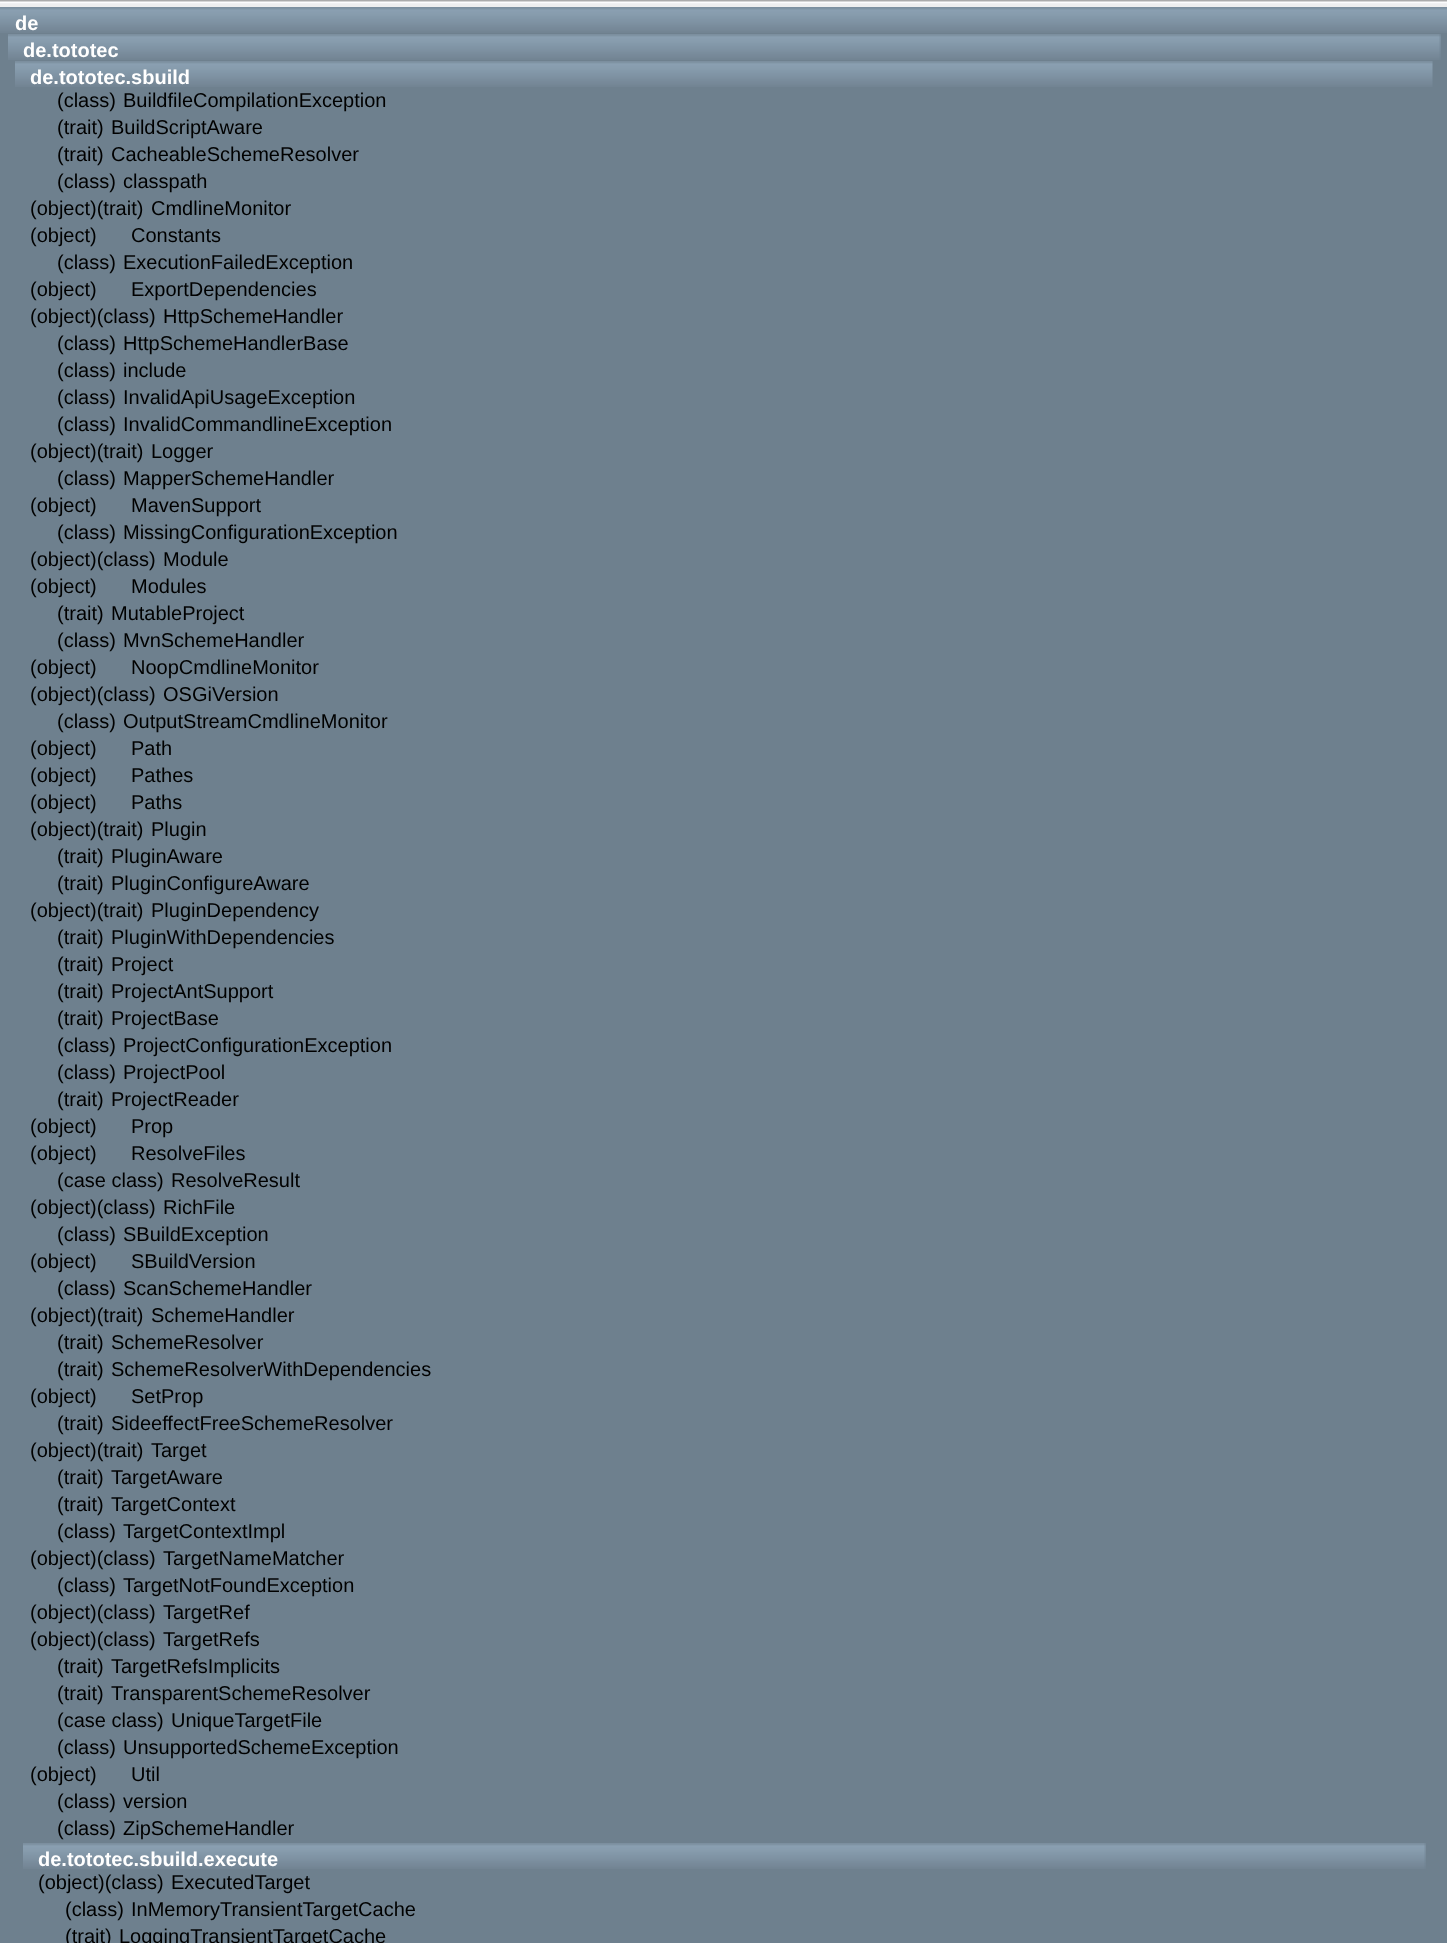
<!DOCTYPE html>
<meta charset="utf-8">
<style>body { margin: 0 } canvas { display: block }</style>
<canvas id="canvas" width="1447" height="1943"></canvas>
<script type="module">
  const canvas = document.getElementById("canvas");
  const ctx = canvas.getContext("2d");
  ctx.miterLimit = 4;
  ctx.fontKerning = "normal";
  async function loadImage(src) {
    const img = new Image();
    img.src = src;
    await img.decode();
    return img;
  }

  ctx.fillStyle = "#ffffff";
  ctx.fillRect(0, 0, 1447, 1943);
  ctx.drawImage(await loadImage("img1.png"), 0, 0, 1447, 7);
  ctx.fillStyle = "#6e808e";
  ctx.fillRect(0, 33, 1447, 1910);
  ctx.drawImage(await loadImage("img2.png"), 0, 7, 1447, 26);
  ctx.font = "bold 20px Liberation Sans";
  ctx.fillStyle = "#ffffff";
  ctx.fillText("de", 15, 30);
  ctx.drawImage(await loadImage("img3.png"), 8, 34, 1433, 26);
  ctx.fillText("de.tototec", 23, 57);
  ctx.drawImage(await loadImage("img4.png"), 15, 61, 1418, 26);
  ctx.fillText("de.tototec.sbuild", 30, 84);
  ctx.font = "20px Liberation Sans";
  ctx.fillStyle = "#000000";
  ctx.fillText("(class)", 57, 107);
  ctx.fillText("BuildfileCompilationException", 123, 107);
  ctx.fillText("(trait)", 57, 134);
  ctx.fillText("BuildScriptAware", 111, 134);
  ctx.fillText("(trait)", 57, 161);
  ctx.fillText("CacheableSchemeResolver", 111, 161);
  ctx.fillText("(class)", 57, 188);
  ctx.fillText("classpath", 123, 188);
  ctx.fillText("(object)(trait)", 30, 215);
  ctx.fillText("CmdlineMonitor", 151, 215);
  ctx.fillText("(object)", 30, 242);
  ctx.fillText("Constants", 131, 242);
  ctx.fillText("(class)", 57, 269);
  ctx.fillText("ExecutionFailedException", 123, 269);
  ctx.fillText("(object)", 30, 296);
  ctx.fillText("ExportDependencies", 131, 296);
  ctx.fillText("(object)(class)", 30, 323);
  ctx.fillText("HttpSchemeHandler", 163, 323);
  ctx.fillText("(class)", 57, 350);
  ctx.fillText("HttpSchemeHandlerBase", 123, 350);
  ctx.fillText("(class)", 57, 377);
  ctx.fillText("include", 123, 377);
  ctx.fillText("(class)", 57, 404);
  ctx.fillText("InvalidApiUsageException", 123, 404);
  ctx.fillText("(class)", 57, 431);
  ctx.fillText("InvalidCommandlineException", 123, 431);
  ctx.fillText("(object)(trait)", 30, 458);
  ctx.fillText("Logger", 151, 458);
  ctx.fillText("(class)", 57, 485);
  ctx.fillText("MapperSchemeHandler", 123, 485);
  ctx.fillText("(object)", 30, 512);
  ctx.fillText("MavenSupport", 131, 512);
  ctx.fillText("(class)", 57, 539);
  ctx.fillText("MissingConfigurationException", 123, 539);
  ctx.fillText("(object)(class)", 30, 566);
  ctx.fillText("Module", 163, 566);
  ctx.fillText("(object)", 30, 593);
  ctx.fillText("Modules", 131, 593);
  ctx.fillText("(trait)", 57, 620);
  ctx.fillText("MutableProject", 111, 620);
  ctx.fillText("(class)", 57, 647);
  ctx.fillText("MvnSchemeHandler", 123, 647);
  ctx.fillText("(object)", 30, 674);
  ctx.fillText("NoopCmdlineMonitor", 131, 674);
  ctx.fillText("(object)(class)", 30, 701);
  ctx.fillText("OSGiVersion", 163, 701);
  ctx.fillText("(class)", 57, 728);
  ctx.fillText("OutputStreamCmdlineMonitor", 123, 728);
  ctx.fillText("(object)", 30, 755);
  ctx.fillText("Path", 131, 755);
  ctx.fillText("(object)", 30, 782);
  ctx.fillText("Pathes", 131, 782);
  ctx.fillText("(object)", 30, 809);
  ctx.fillText("Paths", 131, 809);
  ctx.fillText("(object)(trait)", 30, 836);
  ctx.fillText("Plugin", 151, 836);
  ctx.fillText("(trait)", 57, 863);
  ctx.fillText("PluginAware", 111, 863);
  ctx.fillText("(trait)", 57, 890);
  ctx.fillText("PluginConfigureAware", 111, 890);
  ctx.fillText("(object)(trait)", 30, 917);
  ctx.fillText("PluginDependency", 151, 917);
  ctx.fillText("(trait)", 57, 944);
  ctx.fillText("PluginWithDependencies", 111, 944);
  ctx.fillText("(trait)", 57, 971);
  ctx.fillText("Project", 111, 971);
  ctx.fillText("(trait)", 57, 998);
  ctx.fillText("ProjectAntSupport", 111, 998);
  ctx.fillText("(trait)", 57, 1025);
  ctx.fillText("ProjectBase", 111, 1025);
  ctx.fillText("(class)", 57, 1052);
  ctx.fillText("ProjectConfigurationException", 123, 1052);
  ctx.fillText("(class)", 57, 1079);
  ctx.fillText("ProjectPool", 123, 1079);
  ctx.fillText("(trait)", 57, 1106);
  ctx.fillText("ProjectReader", 111, 1106);
  ctx.fillText("(object)", 30, 1133);
  ctx.fillText("Prop", 131, 1133);
  ctx.fillText("(object)", 30, 1160);
  ctx.fillText("ResolveFiles", 131, 1160);
  ctx.fillText("(case class)", 57, 1187);
  ctx.fillText("ResolveResult", 171, 1187);
  ctx.fillText("(object)(class)", 30, 1214);
  ctx.fillText("RichFile", 163, 1214);
  ctx.fillText("(class)", 57, 1241);
  ctx.fillText("SBuildException", 123, 1241);
  ctx.fillText("(object)", 30, 1268);
  ctx.fillText("SBuildVersion", 131, 1268);
  ctx.fillText("(class)", 57, 1295);
  ctx.fillText("ScanSchemeHandler", 123, 1295);
  ctx.fillText("(object)(trait)", 30, 1322);
  ctx.fillText("SchemeHandler", 151, 1322);
  ctx.fillText("(trait)", 57, 1349);
  ctx.fillText("SchemeResolver", 111, 1349);
  ctx.fillText("(trait)", 57, 1376);
  ctx.fillText("SchemeResolverWithDependencies", 111, 1376);
  ctx.fillText("(object)", 30, 1403);
  ctx.fillText("SetProp", 131, 1403);
  ctx.fillText("(trait)", 57, 1430);
  ctx.fillText("SideeffectFreeSchemeResolver", 111, 1430);
  ctx.fillText("(object)(trait)", 30, 1457);
  ctx.fillText("Target", 151, 1457);
  ctx.fillText("(trait)", 57, 1484);
  ctx.fillText("TargetAware", 111, 1484);
  ctx.fillText("(trait)", 57, 1511);
  ctx.fillText("TargetContext", 111, 1511);
  ctx.fillText("(class)", 57, 1538);
  ctx.fillText("TargetContextImpl", 123, 1538);
  ctx.fillText("(object)(class)", 30, 1565);
  ctx.fillText("TargetNameMatcher", 163, 1565);
  ctx.fillText("(class)", 57, 1592);
  ctx.fillText("TargetNotFoundException", 123, 1592);
  ctx.fillText("(object)(class)", 30, 1619);
  ctx.fillText("TargetRef", 163, 1619);
  ctx.fillText("(object)(class)", 30, 1646);
  ctx.fillText("TargetRefs", 163, 1646);
  ctx.fillText("(trait)", 57, 1673);
  ctx.fillText("TargetRefsImplicits", 111, 1673);
  ctx.fillText("(trait)", 57, 1700);
  ctx.fillText("TransparentSchemeResolver", 111, 1700);
  ctx.fillText("(case class)", 57, 1727);
  ctx.fillText("UniqueTargetFile", 171, 1727);
  ctx.fillText("(class)", 57, 1754);
  ctx.fillText("UnsupportedSchemeException", 123, 1754);
  ctx.fillText("(object)", 30, 1781);
  ctx.fillText("Util", 131, 1781);
  ctx.fillText("(class)", 57, 1808);
  ctx.fillText("version", 123, 1808);
  ctx.fillText("(class)", 57, 1835);
  ctx.fillText("ZipSchemeHandler", 123, 1835);
  ctx.drawImage(await loadImage("img5.png"), 23, 1843, 1403, 26);
  ctx.font = "bold 20px Liberation Sans";
  ctx.fillStyle = "#ffffff";
  ctx.fillText("de.tototec.sbuild.execute", 38, 1866);
  ctx.font = "20px Liberation Sans";
  ctx.fillStyle = "#000000";
  ctx.fillText("(object)(class)", 38, 1889);
  ctx.fillText("ExecutedTarget", 171, 1889);
  ctx.fillText("(class)", 65, 1916);
  ctx.fillText("InMemoryTransientTargetCache", 131, 1916);
  ctx.fillText("(trait)", 65, 1943);
  ctx.fillText("LoggingTransientTargetCache", 119, 1943);
</script>
